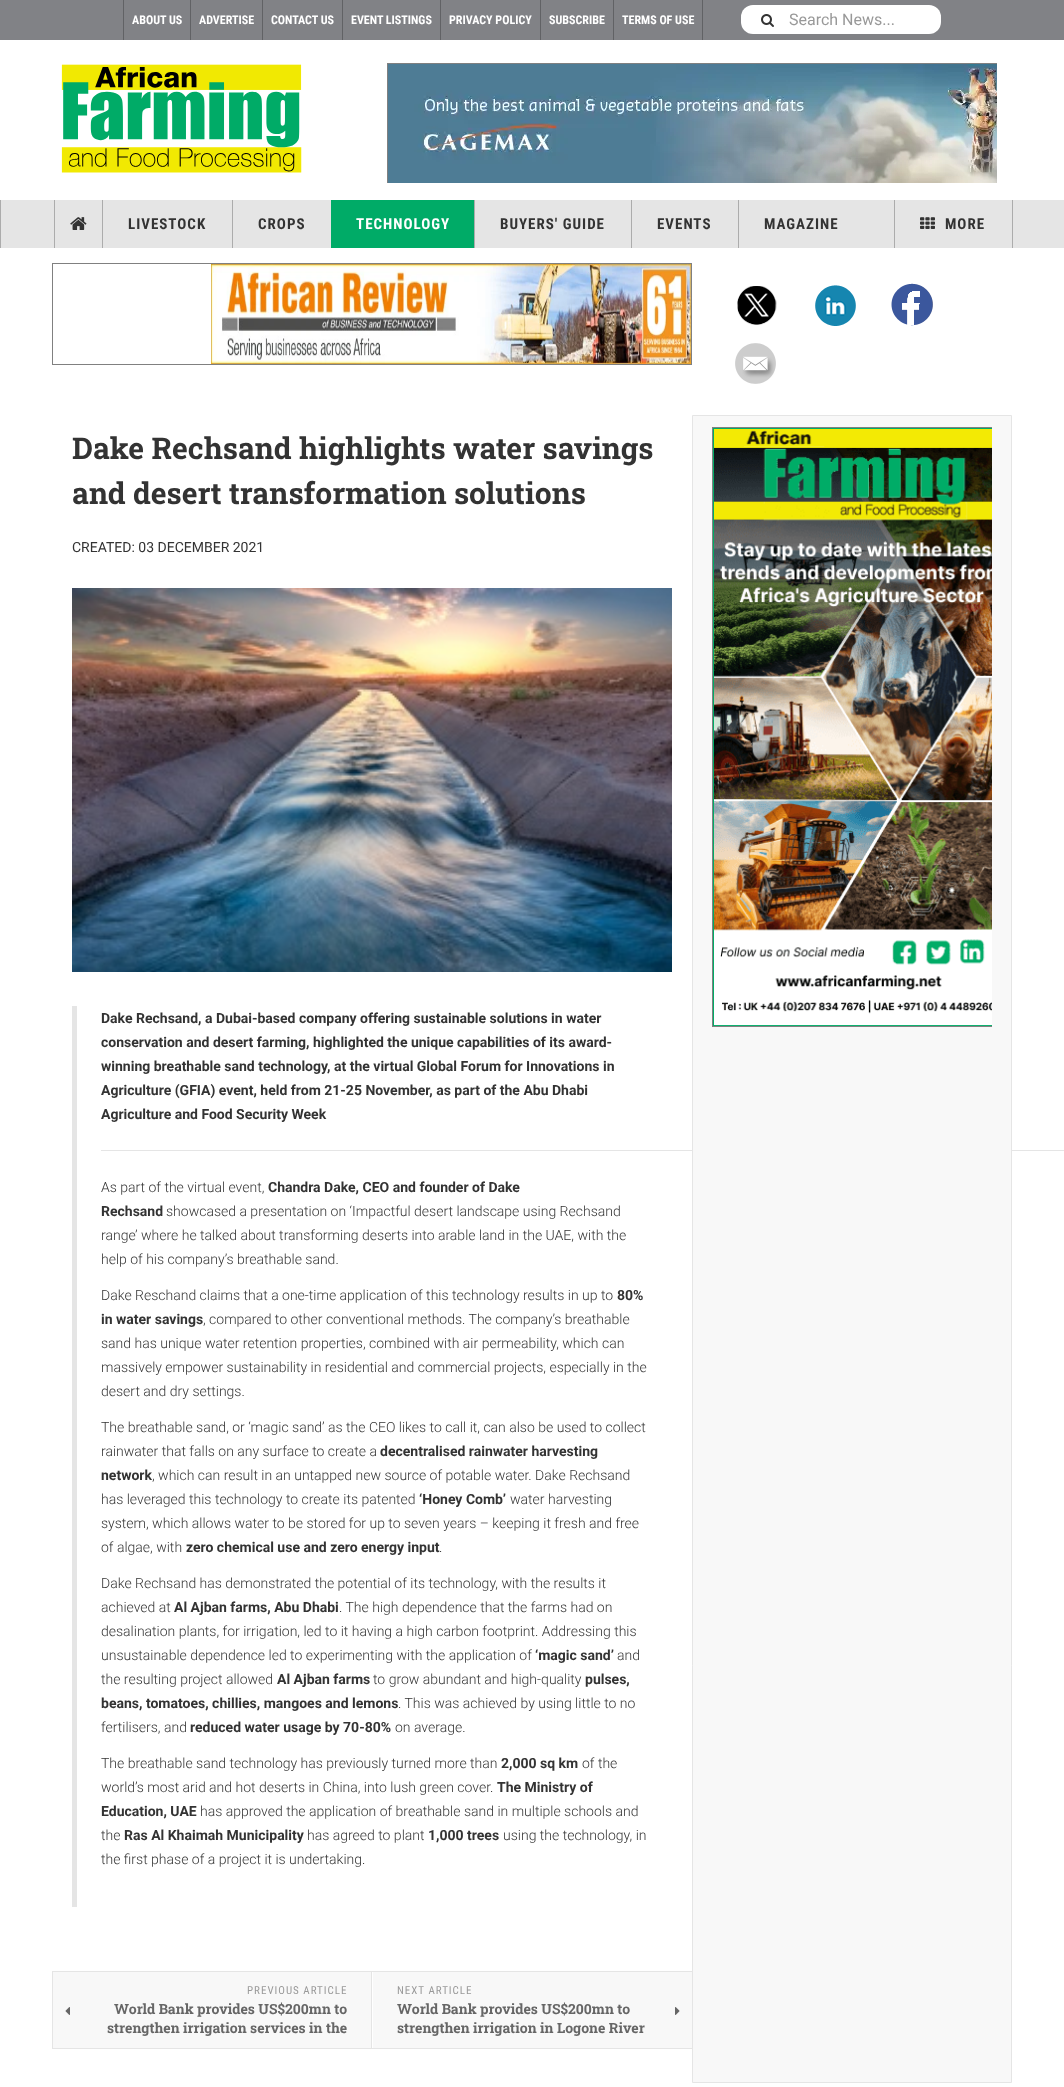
<!DOCTYPE html>
<meta charset="utf-8">
<style>body { margin: 0 } canvas { display: block }</style>
<canvas id="canvas" width="1064" height="2087"></canvas>
<script type="module">
  const canvas = document.getElementById("canvas");
  const ctx = canvas.getContext("2d");
  ctx.miterLimit = 4;
  ctx.fontKerning = "normal";
  async function loadImage(src) {
    const img = new Image();
    img.src = src;
    await img.decode();
    return img;
  }

  ctx.fillStyle = "#ffffff";
  ctx.fillRect(0, 0, 1064, 2087);
  ctx.fillStyle = "#818286";
  ctx.fillRect(0, 0, 1064, 40);
  ctx.fillStyle = "#616265";
  ctx.fillRect(123, 0, 1, 40);
  ctx.font = "bold 12px Roboto Condensed";
  ctx.fillStyle = "#ffffff";
  ctx.fillText("ABOUT US", 132, 24);
  ctx.fillStyle = "#616265";
  ctx.fillRect(190, 0, 1, 40);
  ctx.fillStyle = "#ffffff";
  ctx.fillText("ADVERTISE", 199, 24);
  ctx.fillStyle = "#616265";
  ctx.fillRect(262, 0, 1, 40);
  ctx.fillStyle = "#ffffff";
  ctx.fillText("CONTACT US", 271, 24);
  ctx.fillStyle = "#616265";
  ctx.fillRect(342, 0, 1, 40);
  ctx.fillStyle = "#ffffff";
  ctx.fillText("EVENT LISTINGS", 351, 24);
  ctx.fillStyle = "#616265";
  ctx.fillRect(440, 0, 1, 40);
  ctx.fillStyle = "#ffffff";
  ctx.fillText("PRIVACY POLICY", 449, 24);
  ctx.fillStyle = "#616265";
  ctx.fillRect(540, 0, 1, 40);
  ctx.fillStyle = "#ffffff";
  ctx.fillText("SUBSCRIBE", 549, 24);
  ctx.fillStyle = "#616265";
  ctx.fillRect(702, 0, 1, 40);
  ctx.fillRect(613, 0, 1, 40);
  ctx.fillStyle = "#ffffff";
  ctx.fillText("TERMS OF USE", 622, 24);
  ctx.beginPath();
  ctx.roundRect(741, 5, 200, 29, 12);
  ctx.fill();
  ctx.drawImage(await loadImage("img1.png"), 761, 14, 13, 13);
  ctx.font = "16px Roboto";
  ctx.fillStyle = "#999999";
  ctx.fillText("Search News...", 789, 25);
  ctx.drawImage(await loadImage("img2.png"), 61, 64, 241, 109);
  ctx.save();
  ctx.beginPath();
  ctx.rect(387, 63, 610, 120);
  ctx.clip();
  ctx.strokeStyle = "#808080";
  ctx.strokeRect(387.5, 63.5, 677, 121);
  ctx.restore();
  ctx.drawImage(await loadImage("img3.png"), 388, 64, 609, 119);
  ctx.fillStyle = "#e5e5e5";
  ctx.fillRect(1, 200, 1063, 48);
  ctx.fillStyle = "#acacac";
  ctx.fillRect(0, 200, 1, 48);
  ctx.fillRect(54, 200, 1, 48);
  ctx.drawImage(await loadImage("img4.png"), 70, 217, 17, 13);
  ctx.fillRect(102, 200, 1, 48);
  ctx.letterSpacing = "1px";
  ctx.font = "bold 15px Roboto Condensed";
  ctx.fillStyle = "#333333";
  ctx.fillText("LIVESTOCK", 128, 229);
  ctx.fillStyle = "#acacac";
  ctx.fillRect(232, 200, 1, 48);
  ctx.fillStyle = "#333333";
  ctx.fillText("CROPS", 258, 229);
  ctx.fillStyle = "#00ab67";
  ctx.fillRect(331, 200, 143, 48);
  ctx.fillStyle = "#ffffff";
  ctx.fillText("TECHNOLOGY", 356, 229);
  ctx.fillStyle = "#acacac";
  ctx.fillRect(474, 200, 1, 48);
  ctx.fillStyle = "#333333";
  ctx.fillText("BUYERS' GUIDE", 500, 229);
  ctx.fillStyle = "#acacac";
  ctx.fillRect(631, 200, 1, 48);
  ctx.fillStyle = "#333333";
  ctx.fillText("EVENTS", 657, 229);
  ctx.fillStyle = "#acacac";
  ctx.fillRect(738, 200, 1, 48);
  ctx.fillStyle = "#333333";
  ctx.fillText("MAGAZINE", 764, 229);
  ctx.fillStyle = "#acacac";
  ctx.fillRect(1012, 200, 1, 48);
  ctx.fillRect(894, 200, 1, 48);
  ctx.drawImage(await loadImage("img5.png"), 920, 217, 15, 12);
  ctx.fillStyle = "#333333";
  ctx.fillText("MORE", 945, 229);
  ctx.strokeStyle = "#808080";
  ctx.strokeRect(52.5, 263.5, 639, 101);
  ctx.drawImage(await loadImage("img6.png"), 211, 264, 480, 100);
  ctx.drawImage(await loadImage("img7.png"), 737, 286, 40, 39);
  ctx.drawImage(await loadImage("img8.png"), 815, 285, 41, 41);
  ctx.drawImage(await loadImage("img9.png"), 891, 283, 42, 43);
  ctx.drawImage(await loadImage("img10.png"), 735, 343, 41, 41);
  ctx.letterSpacing = "0px";
  ctx.font = "bold 30px Roboto Slab";
  ctx.fillText("Dake Rechsand highlights water savings", 72, 459);
  ctx.fillText("and desert transformation solutions", 72, 504);
  ctx.font = "14px Roboto";
  ctx.fillText("CREATED: 03 DECEMBER 2021", 72, 552);
  ctx.drawImage(await loadImage("img11.png"), 72, 588, 600, 384);
  ctx.fillStyle = "#e5e5e5";
  ctx.fillRect(72, 1006, 5, 901);
  ctx.font = "bold 14px Roboto";
  ctx.fillStyle = "#333333";
  ctx.fillText("Dake Rechsand, a Dubai-based company offering sustainable solutions in water", 101, 1023);
  ctx.fillText("conservation and desert farming, highlighted the unique capabilities of its award-", 101, 1047);
  ctx.fillText("winning breathable sand technology, at the virtual Global Forum for Innovations in", 101, 1071);
  ctx.fillText("Agriculture (GFIA) event, held from 21-25 November, as part of the Abu Dhabi", 101, 1095);
  ctx.fillText("Agriculture and Food Security Week", 101, 1119);
  ctx.fillStyle = "#e5e5e5";
  ctx.fillRect(101, 1150, 963, 1);
  ctx.font = "300 14px Roboto";
  ctx.fillStyle = "#333333";
  ctx.fillText("As part of the virtual event,", 101, 1192);
  ctx.font = "bold 14px Roboto";
  ctx.fillText("Chandra Dake, CEO and founder of Dake", 268, 1192);
  ctx.fillText("Rechsand", 101, 1216);
  ctx.font = "300 14px Roboto";
  ctx.fillText("showcased a presentation on ‘Impactful desert landscape using Rechsand", 166, 1216);
  ctx.fillText("range’ where he talked about transforming deserts into arable land in the UAE, with the", 101, 1240);
  ctx.fillText("help of his company’s breathable sand.", 101, 1264);
  ctx.fillText("Dake Reschand claims that a one-time application of this technology results in up to", 101, 1300);
  ctx.font = "bold 14px Roboto";
  ctx.fillText("80%", 617, 1300);
  ctx.fillText("in water savings", 101, 1324);
  ctx.font = "300 14px Roboto";
  ctx.fillText(", compared to other conventional methods. The company’s breathable", 203, 1324);
  ctx.fillText("sand has unique water retention properties, combined with air permeability, which can", 101, 1348);
  ctx.fillText("massively empower sustainability in residential and commercial projects, especially in the", 101, 1372);
  ctx.fillText("desert and dry settings.", 101, 1396);
  ctx.fillText("The breathable sand, or ‘magic sand’ as the CEO likes to call it, can also be used to collect", 101, 1432);
  ctx.fillText("rainwater that falls on any surface to create a", 101, 1456);
  ctx.font = "bold 14px Roboto";
  ctx.fillText("decentralised rainwater harvesting", 380, 1456);
  ctx.fillText("network", 101, 1480);
  ctx.font = "300 14px Roboto";
  ctx.fillText(", which can result in an untapped new source of potable water. Dake Rechsand", 152, 1480);
  ctx.fillText("has leveraged this technology to create its patented", 101, 1504);
  ctx.font = "bold 14px Roboto";
  ctx.fillText("‘Honey Comb’", 419, 1504);
  ctx.font = "300 14px Roboto";
  ctx.fillText("water harvesting", 510, 1504);
  ctx.fillText("system, which allows water to be stored for up to seven years – keeping it fresh and free", 101, 1528);
  ctx.fillText("of algae, with", 101, 1552);
  ctx.font = "bold 14px Roboto";
  ctx.fillText("zero chemical use and zero energy input", 186, 1552);
  ctx.font = "300 14px Roboto";
  ctx.fillText(".", 439, 1552);
  ctx.fillText("Dake Rechsand has demonstrated the potential of its technology, with the results it", 101, 1588);
  ctx.fillText("achieved at", 101, 1612);
  ctx.font = "bold 14px Roboto";
  ctx.fillText("Al Ajban farms, Abu Dhabi", 174, 1612);
  ctx.font = "300 14px Roboto";
  ctx.fillText(". The high dependence that the farms had on", 339, 1612);
  ctx.fillText("desalination plants, for irrigation, led to it having a high carbon footprint. Addressing this", 101, 1636);
  ctx.fillText("unsustainable dependence led to experimenting with the application of", 101, 1660);
  ctx.font = "bold 14px Roboto";
  ctx.fillText("‘magic sand’", 535, 1660);
  ctx.font = "300 14px Roboto";
  ctx.fillText("and", 617, 1660);
  ctx.fillText("the resulting project allowed", 101, 1684);
  ctx.font = "bold 14px Roboto";
  ctx.fillText("Al Ajban farms", 277, 1684);
  ctx.font = "300 14px Roboto";
  ctx.fillText("to grow abundant and high-quality", 373, 1684);
  ctx.font = "bold 14px Roboto";
  ctx.fillText("pulses,", 585, 1684);
  ctx.fillText("beans, tomatoes, chillies, mangoes and lemons", 101, 1708);
  ctx.font = "300 14px Roboto";
  ctx.fillText(". This was achieved by using little to no", 398, 1708);
  ctx.fillText("fertilisers, and", 101, 1732);
  ctx.font = "bold 14px Roboto";
  ctx.fillText("reduced water usage by 70-80%", 190, 1732);
  ctx.font = "300 14px Roboto";
  ctx.fillText("on average.", 395, 1732);
  ctx.fillText("The breathable sand technology has previously turned more than", 101, 1768);
  ctx.font = "bold 14px Roboto";
  ctx.fillText("2,000 sq km", 501, 1768);
  ctx.font = "300 14px Roboto";
  ctx.fillText("of the", 582, 1768);
  ctx.fillText("world’s most arid and hot deserts in China, into lush green cover.", 101, 1792);
  ctx.font = "bold 14px Roboto";
  ctx.fillText("The Ministry of", 497, 1792);
  ctx.fillText("Education, UAE", 101, 1816);
  ctx.font = "300 14px Roboto";
  ctx.fillText("has approved the application of breathable sand in multiple schools and", 200, 1816);
  ctx.fillText("the", 101, 1840);
  ctx.font = "bold 14px Roboto";
  ctx.fillText("Ras Al Khaimah Municipality", 124, 1840);
  ctx.font = "300 14px Roboto";
  ctx.fillText("has agreed to plant", 307, 1840);
  ctx.font = "bold 14px Roboto";
  ctx.fillText("1,000 trees", 428, 1840);
  ctx.font = "300 14px Roboto";
  ctx.fillText("using the technology, in", 503, 1840);
  ctx.fillText("the first phase of a project it is undertaking.", 101, 1864);
  ctx.fillStyle = "#e5e5e5";
  ctx.fillRect(52, 1971, 640, 1);
  ctx.fillRect(52, 2048, 640, 1);
  ctx.fillRect(52, 1971, 1, 78);
  ctx.fillRect(371, 1972, 1, 76);
  ctx.fillStyle = "#f8f8f8";
  ctx.fillRect(53, 1972, 318, 76);
  ctx.letterSpacing = "1px";
  ctx.font = "11px Roboto Condensed";
  ctx.fillStyle = "#999999";
  ctx.fillText("PREVIOUS ARTICLE", 247, 1994);
  ctx.drawImage(await loadImage("img12.png"), 65, 2007, 5, 8);
  ctx.letterSpacing = "0px";
  ctx.font = "bold 14px Roboto Slab";
  ctx.fillStyle = "#666666";
  ctx.fillText("World Bank provides US$200mn to", 114, 2014);
  ctx.fillText("strengthen irrigation services in the", 107, 2033);
  ctx.fillStyle = "#f8f8f8";
  ctx.fillRect(373, 1972, 319, 76);
  ctx.letterSpacing = "1px";
  ctx.font = "11px Roboto Condensed";
  ctx.fillStyle = "#999999";
  ctx.fillText("NEXT ARTICLE", 397, 1994);
  ctx.letterSpacing = "0px";
  ctx.font = "bold 14px Roboto Slab";
  ctx.fillStyle = "#666666";
  ctx.fillText("World Bank provides US$200mn to", 397, 2014);
  ctx.drawImage(await loadImage("img13.png"), 675, 2007, 5, 8);
  ctx.fillText("strengthen irrigation in Logone River", 397, 2033);
  ctx.fillStyle = "#f8f8f8";
  ctx.beginPath();
  ctx.rect(692.5, 415.5, 319, 1667);
  ctx.fill();
  ctx.strokeStyle = "#e5e5e5";
  ctx.stroke();
  ctx.save();
  ctx.beginPath();
  ctx.rect(712, 427, 280, 600);
  ctx.clip();
  ctx.strokeStyle = "#808080";
  ctx.strokeRect(712.5, 427.5, 299, 599);
  ctx.restore();
  ctx.drawImage(await loadImage("img14.png"), 713, 428, 279, 598);
</script>
